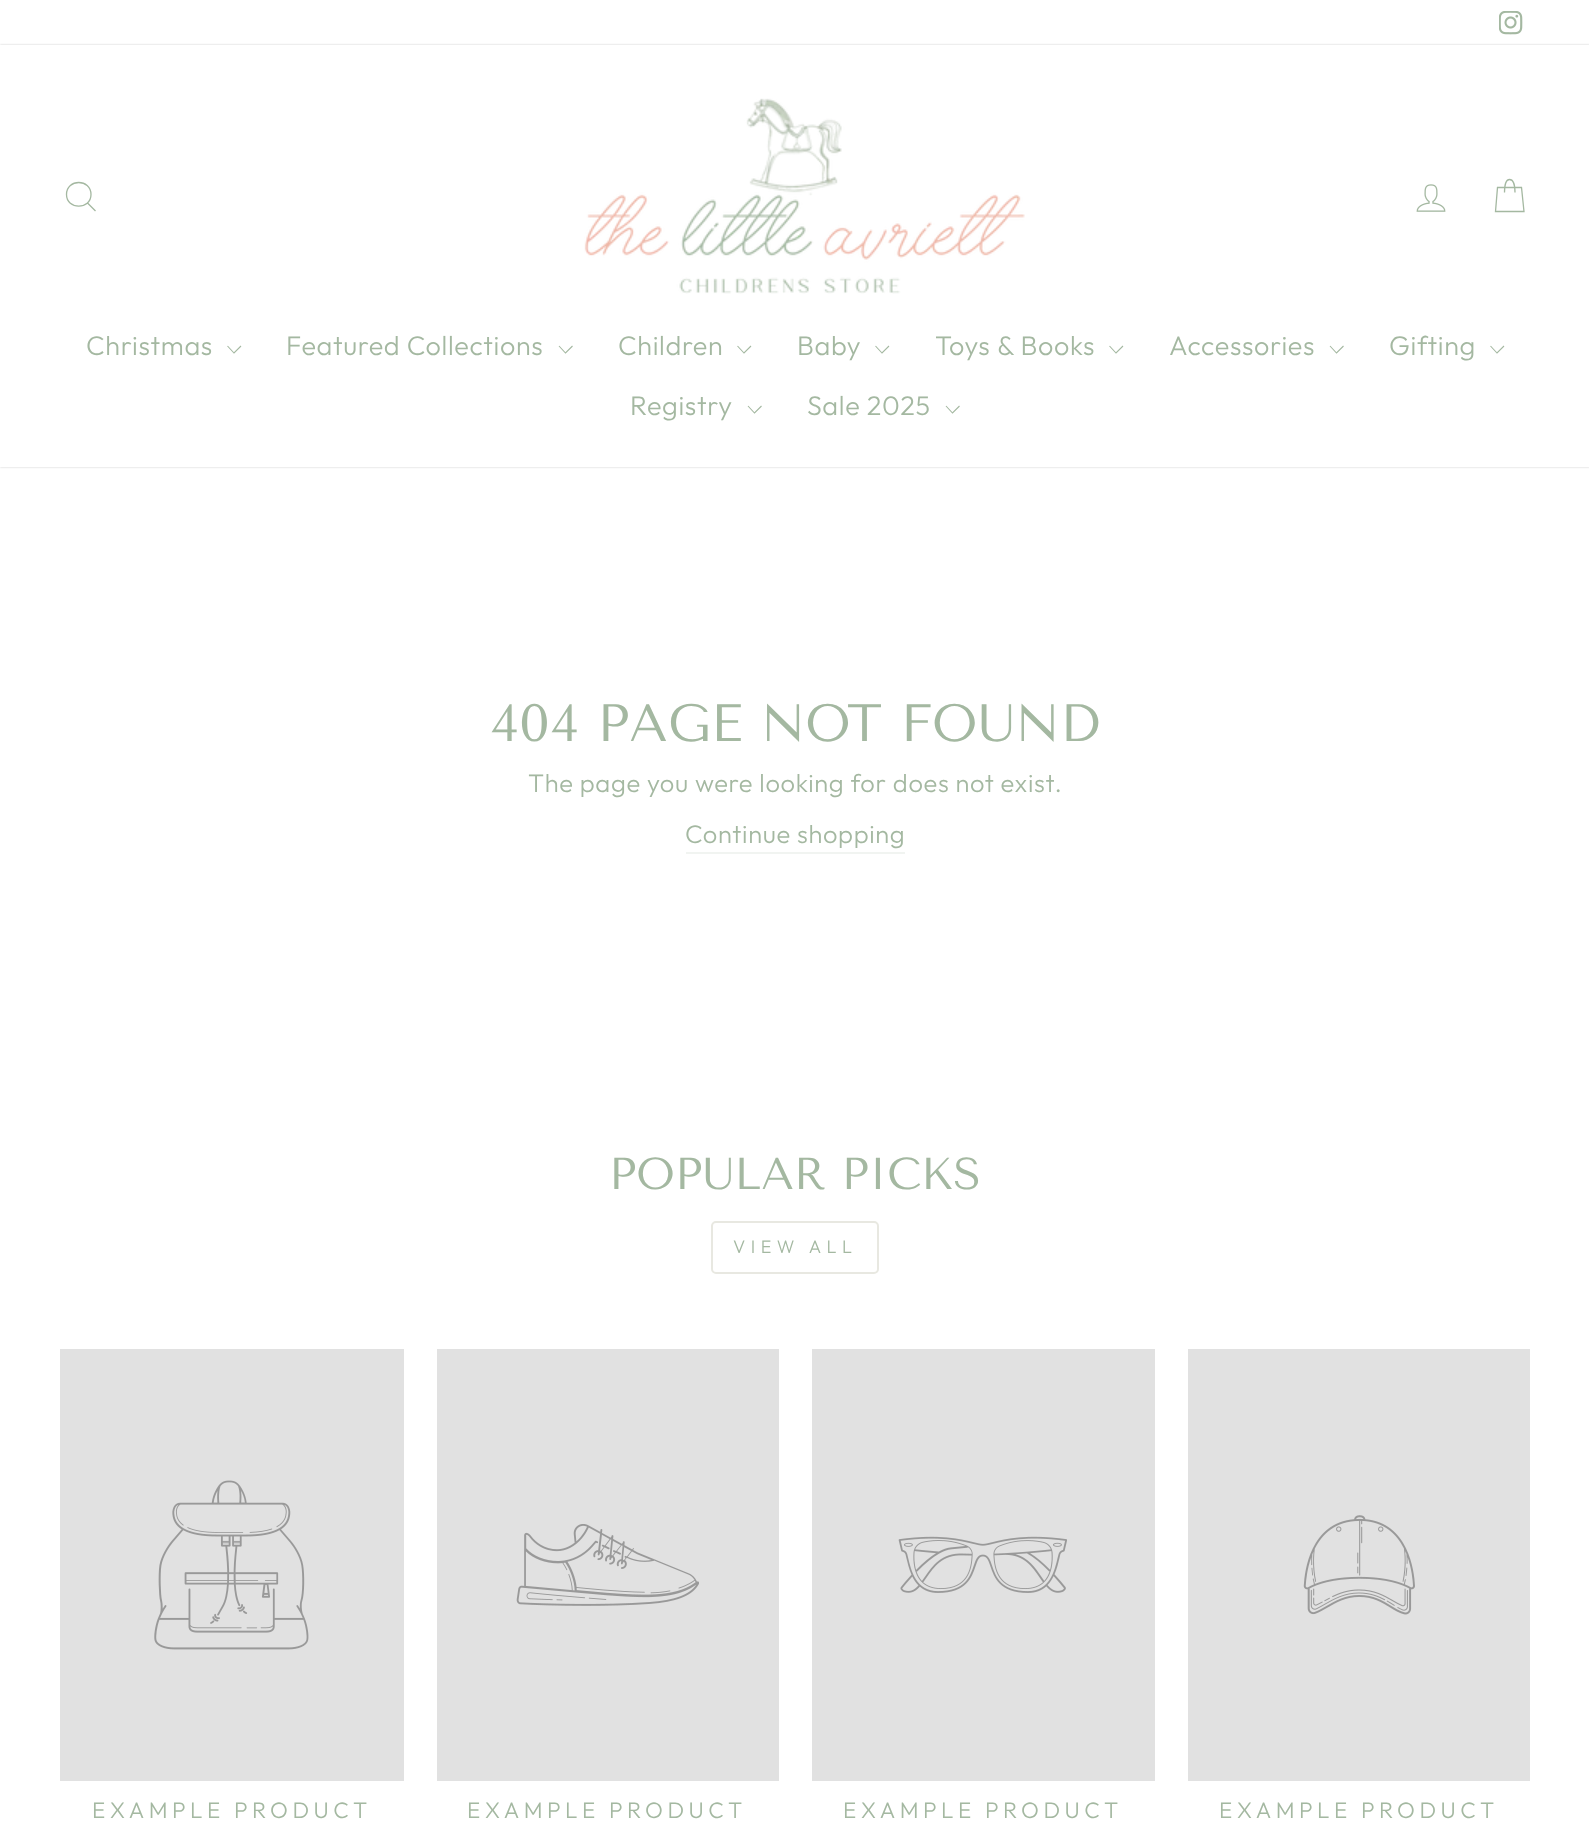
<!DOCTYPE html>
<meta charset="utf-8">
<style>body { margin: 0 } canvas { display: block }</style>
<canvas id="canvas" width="1589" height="1823"></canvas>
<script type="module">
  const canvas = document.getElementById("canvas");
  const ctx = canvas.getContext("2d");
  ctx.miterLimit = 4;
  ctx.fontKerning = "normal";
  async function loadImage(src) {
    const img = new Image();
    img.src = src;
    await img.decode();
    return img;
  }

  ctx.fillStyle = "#ffffff";
  ctx.fillRect(0, 0, 1589, 1823);
  ctx.drawImage(await loadImage("img1.png"), 1499, 11, 24, 24);
  ctx.fillStyle = "rgba(0, 0, 0, 0.2)";
  ctx.filter = "blur(1px)";
  ctx.beginPath();
  ctx.rect(0, 45, 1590, 422);
  ctx.fill();
  ctx.filter = "none";
  ctx.fillStyle = "#ffffff";
  ctx.fillRect(0, 45, 1589, 422);
  ctx.beginPath();
  ctx.moveTo(91, 194.5);
  ctx.bezierCurveTo(91, 210, 66.5, 210, 66.5, 194.5);
  ctx.bezierCurveTo(66.5, 178.5, 91, 178.5, 91, 194.5);
  ctx.closePath();
  ctx.moveTo(95.5, 211);
  ctx.lineTo(87.5, 203);
  ctx.strokeStyle = "#a4b8a1";
  ctx.lineWidth = 1.3;
  ctx.stroke();
  ctx.drawImage(await loadImage("img2.png"), 584, 98, 441, 196);
  ctx.drawImage(await loadImage("img3.png"), 1416, 184, 30, 28);
  ctx.beginPath();
  ctx.moveTo(1504.5, 192.5);
  ctx.bezierCurveTo(1504.5, 182, 1506.5, 179.5, 1509.5, 179.5);
  ctx.bezierCurveTo(1512.5, 179.5, 1515, 182, 1515, 192.5);
  ctx.moveTo(1497.5, 187.5);
  ctx.lineTo(1521.5, 187.5);
  ctx.lineTo(1524, 211.5);
  ctx.lineTo(1495.5, 211.5);
  ctx.closePath();
  ctx.stroke();
  ctx.letterSpacing = "0.65px";
  ctx.font = "300 27px Outfit";
  ctx.fillStyle = "#a4b8a1";
  ctx.fillText("Christmas", 86, 355);
  ctx.beginPath();
  ctx.moveTo(227.5, 346);
  ctx.lineTo(234, 353);
  ctx.lineTo(241, 346);
  ctx.lineWidth = 1.1;
  ctx.stroke();
  ctx.fillText("Featured Collections", 286, 355);
  ctx.beginPath();
  ctx.moveTo(559, 346);
  ctx.lineTo(565.5, 353);
  ctx.lineTo(572.5, 346);
  ctx.stroke();
  ctx.fillText("Children", 618, 355);
  ctx.beginPath();
  ctx.moveTo(737.5, 346);
  ctx.lineTo(744, 353);
  ctx.lineTo(751, 346);
  ctx.stroke();
  ctx.fillText("Baby", 797, 355);
  ctx.beginPath();
  ctx.moveTo(875.5, 346);
  ctx.lineTo(882, 353);
  ctx.lineTo(889, 346);
  ctx.stroke();
  ctx.fillText("Toys & Books", 935, 355);
  ctx.beginPath();
  ctx.moveTo(1109.5, 346);
  ctx.lineTo(1116, 353);
  ctx.lineTo(1123, 346);
  ctx.stroke();
  ctx.fillText("Accessories", 1169, 355);
  ctx.beginPath();
  ctx.moveTo(1330, 346);
  ctx.lineTo(1336.5, 353);
  ctx.lineTo(1343.5, 346);
  ctx.stroke();
  ctx.fillText("Gifting", 1389, 355);
  ctx.beginPath();
  ctx.moveTo(1490.5, 346);
  ctx.lineTo(1497, 353);
  ctx.lineTo(1504, 346);
  ctx.stroke();
  ctx.fillText("Registry", 630, 415);
  ctx.beginPath();
  ctx.moveTo(748, 406);
  ctx.lineTo(754.5, 413);
  ctx.lineTo(761.5, 406);
  ctx.stroke();
  ctx.fillText("Sale 2025", 807, 415);
  ctx.beginPath();
  ctx.moveTo(946, 406);
  ctx.lineTo(952.5, 413);
  ctx.lineTo(959.5, 406);
  ctx.stroke();
  ctx.letterSpacing = "0px";
  ctx.font = "52.5px Tenor Sans";
  ctx.fillText("404 PAGE NOT FOUND", 490, 741);
  ctx.letterSpacing = "0.65px";
  ctx.font = "300 25.5px Outfit";
  ctx.fillText("The page you were looking for does not exist.", 528, 792);
  ctx.fillStyle = "#f1f4f1";
  ctx.fillRect(686, 852, 219, 2);
  ctx.fillStyle = "#a4b8a1";
  ctx.fillText("Continue shopping", 685, 843);
  ctx.letterSpacing = "0px";
  ctx.font = "44.6px Tenor Sans";
  ctx.fillText("POPULAR PICKS", 609, 1189);
  ctx.beginPath();
  ctx.roundRect(712, 1222, 166, 51, 4);
  ctx.strokeStyle = "#e8e8e1";
  ctx.lineWidth = 2;
  ctx.stroke();
  ctx.letterSpacing = "5.5px";
  ctx.font = "300 18px Outfit";
  ctx.fillText("VIEW ALL", 733, 1253);
  ctx.fillStyle = "#e1e1e1";
  ctx.fillRect(60, 1349, 344, 432);
  ctx.drawImage(await loadImage("img4.png"), 154, 1480, 155, 170);
  ctx.letterSpacing = "4.5px";
  ctx.font = "300 22.5px Outfit";
  ctx.fillStyle = "#a4b8a1";
  ctx.fillText("EXAMPLE PRODUCT", 92, 1818);
  ctx.fillStyle = "#e1e1e1";
  ctx.fillRect(437, 1349, 342, 432);
  ctx.drawImage(await loadImage("img5.png"), 516, 1524, 183, 82);
  ctx.fillStyle = "#a4b8a1";
  ctx.fillText("EXAMPLE PRODUCT", 467, 1818);
  ctx.fillStyle = "#e1e1e1";
  ctx.fillRect(812, 1349, 343, 432);
  ctx.drawImage(await loadImage("img6.png"), 898, 1536, 169, 57);
  ctx.fillStyle = "#a4b8a1";
  ctx.fillText("EXAMPLE PRODUCT", 843, 1818);
  ctx.fillStyle = "#e1e1e1";
  ctx.fillRect(1188, 1349, 342, 432);
  ctx.drawImage(await loadImage("img7.png"), 1303, 1515, 112, 100);
  ctx.fillStyle = "#a4b8a1";
  ctx.fillText("EXAMPLE PRODUCT", 1219, 1818);
</script>
